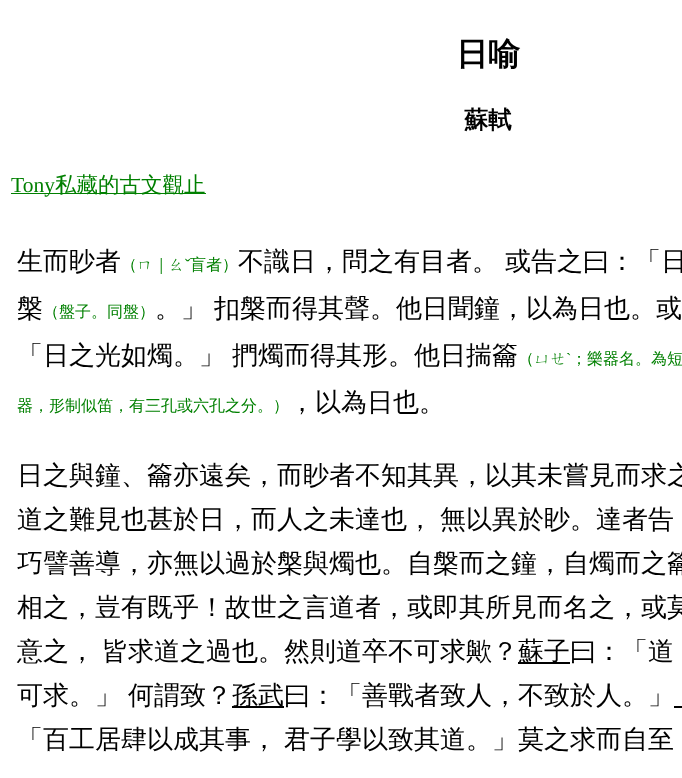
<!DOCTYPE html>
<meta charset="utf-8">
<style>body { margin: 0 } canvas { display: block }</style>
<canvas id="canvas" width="682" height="778"></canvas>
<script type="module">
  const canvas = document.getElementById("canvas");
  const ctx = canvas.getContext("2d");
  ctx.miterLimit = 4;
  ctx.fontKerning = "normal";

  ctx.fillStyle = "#ffffff";
  ctx.fillRect(0, 0, 682, 778);
  ctx.font = "bold 32px WenQuanYi Zen Hei";
  ctx.fillStyle = "#000000";
  ctx.fillText("日喻", 456, 65);
  ctx.font = "bold 24px WenQuanYi Zen Hei";
  ctx.fillText("蘇軾", 464, 128);
  ctx.fillStyle = "#008000";
  ctx.fillRect(11, 193, 195, 1);
  ctx.font = "21.5px Liberation Serif";
  ctx.fillText("Tony", 11, 192);
  ctx.font = "500 21.5px WenQuanYi Zen Hei";
  ctx.fillText("私藏的古文觀止", 55, 192);
  ctx.font = "500 26px WenQuanYi Zen Hei";
  ctx.fillStyle = "#000000";
  ctx.fillText("生而眇者", 17, 270);
  ctx.font = "500 16px WenQuanYi Zen Hei";
  ctx.fillStyle = "#008000";
  ctx.fillText("（ㄇ｜ㄠ", 121, 270);
  ctx.font = "16px Liberation Serif";
  ctx.fillText("ˇ", 185, 270);
  ctx.font = "500 16px WenQuanYi Zen Hei";
  ctx.fillText("盲者）", 190, 270);
  ctx.font = "500 26px WenQuanYi Zen Hei";
  ctx.fillStyle = "#000000";
  ctx.fillText("不識日，問之有目者。", 238, 270);
  ctx.fillText("或告之曰：「日", 505, 270);
  ctx.fillText("槃", 17, 317);
  ctx.font = "500 16px WenQuanYi Zen Hei";
  ctx.fillStyle = "#008000";
  ctx.fillText("（盤子。同盤）", 43, 317);
  ctx.font = "500 26px WenQuanYi Zen Hei";
  ctx.fillStyle = "#000000";
  ctx.fillText("。」", 155, 317);
  ctx.fillText("扣槃而得其聲。他日聞鐘，以為日也。或", 214, 317);
  ctx.fillText("「日之光如燭。」", 17, 364);
  ctx.fillText("捫燭而得其形。他日揣籥", 232, 364);
  ctx.font = "500 16px WenQuanYi Zen Hei";
  ctx.fillStyle = "#008000";
  ctx.fillText("（ㄩㄝ", 518, 364);
  ctx.font = "16px Liberation Serif";
  ctx.fillText("ˋ", 566, 364);
  ctx.font = "500 16px WenQuanYi Zen Hei";
  ctx.fillText("；樂器名。為短", 571, 364);
  ctx.fillText("器，形制似笛，有三孔或六孔之分。）", 17, 411);
  ctx.font = "500 26px WenQuanYi Zen Hei";
  ctx.fillStyle = "#000000";
  ctx.fillText("，以為日也。", 289, 411);
  ctx.fillText("日之與鐘、籥亦遠矣，而眇者不知其異，以其未嘗見而求之", 17, 484);
  ctx.fillText("道之難見也甚於日，而人之未達也，", 17, 528);
  ctx.fillText("無以異於眇。達者告", 440, 528);
  ctx.fillText("巧譬善導，亦無以過於槃與燭也。自槃而之鐘，自燭而之籥", 17, 572);
  ctx.fillText("相之，豈有既乎！故世之言道者，或即其所見而名之，或莫", 17, 616);
  ctx.fillText("意之，", 17, 660);
  ctx.fillText("皆求道之過也。然則道卒不可求歟？", 102, 660);
  ctx.fillRect(518, 662, 52, 2);
  ctx.fillText("蘇子曰：「道", 518, 660);
  ctx.fillText("可求。」", 17, 704);
  ctx.fillText("何謂致？", 128, 704);
  ctx.fillRect(232, 706, 52, 2);
  ctx.fillText("孫武曰：「善戰者致人，不致於人。」", 232, 704);
  ctx.fillRect(674, 706, 8, 2);
  ctx.fillText("「百工居肆以成其事，", 17, 748);
  ctx.fillText("君子學以致其道。」莫之求而自至", 284, 748);
</script>
